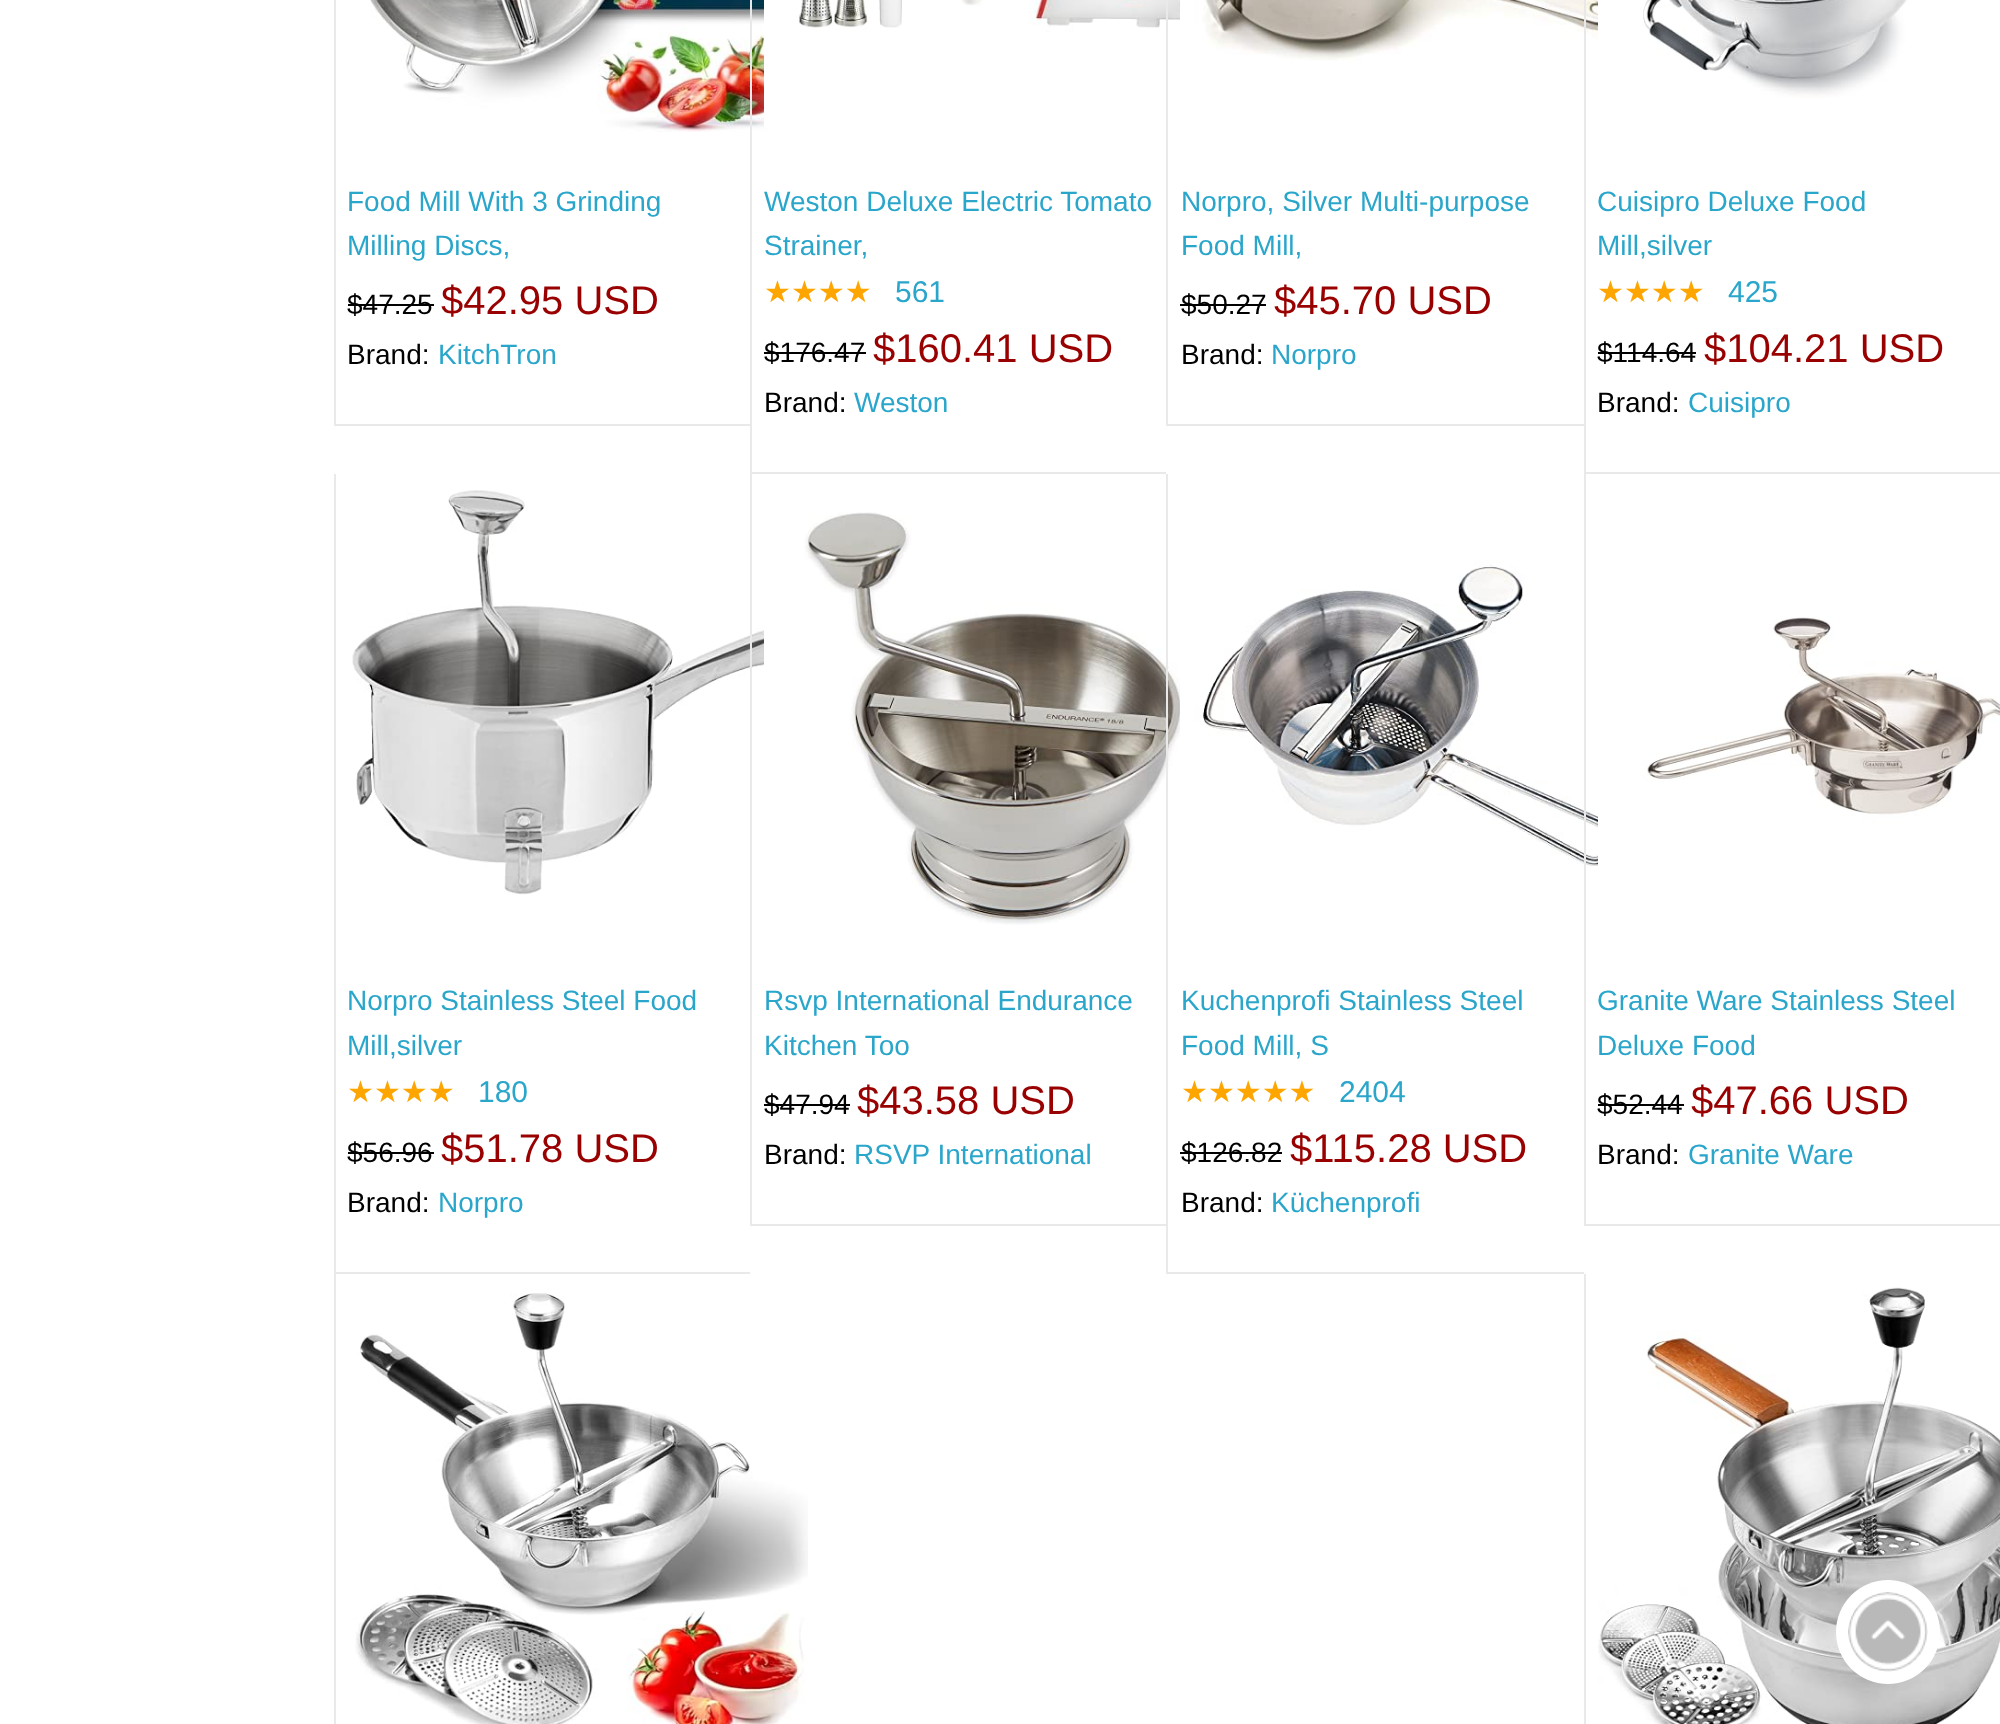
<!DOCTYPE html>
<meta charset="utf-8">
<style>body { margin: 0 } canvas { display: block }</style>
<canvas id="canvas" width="2000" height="1724"></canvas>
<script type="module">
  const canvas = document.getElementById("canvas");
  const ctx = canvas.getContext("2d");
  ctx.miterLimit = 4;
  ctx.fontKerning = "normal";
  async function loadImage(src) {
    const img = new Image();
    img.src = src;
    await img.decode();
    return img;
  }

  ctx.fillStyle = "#ffffff";
  ctx.fillRect(0, 0, 2000, 1724);
  ctx.fillStyle = "#e9e9e9";
  ctx.fillRect(334, 424, 416, 2);
  ctx.fillRect(334, 0, 2, 426);
  ctx.drawImage(await loadImage("img1.png"), 370, 0, 436, 132);
  ctx.font = "28px Liberation Sans";
  ctx.fillStyle = "#2ba6cb";
  ctx.fillText("Food Mill With 3 Grinding", 347, 211);
  ctx.fillText("Milling Discs,", 347, 255);
  ctx.fillStyle = "#000000";
  ctx.fillText("$47.25", 347, 314);
  ctx.fillRect(348, 304, 86, 2);
  ctx.font = "40px Liberation Sans";
  ctx.fillStyle = "#990000";
  ctx.fillText("$42.95 USD", 441, 314);
  ctx.font = "28px Liberation Sans";
  ctx.fillStyle = "#000000";
  ctx.fillText("Brand:", 347, 364);
  ctx.fillStyle = "#2ba6cb";
  ctx.fillText("KitchTron", 438, 364);
  ctx.fillStyle = "#e9e9e9";
  ctx.fillRect(750, 472, 416, 2);
  ctx.fillRect(750, 0, 2, 474);
  ctx.drawImage(await loadImage("img2.png"), 764, 0, 420, 128);
  ctx.fillStyle = "#2ba6cb";
  ctx.fillText("Weston Deluxe Electric Tomato", 764, 211);
  ctx.fillText("Strainer,", 764, 255);
  ctx.font = "30px DejaVu Sans";
  ctx.fillStyle = "#ffa500";
  ctx.fillText("★★★★", 764, 302);
  ctx.font = "30px Liberation Sans";
  ctx.fillStyle = "#2ba6cb";
  ctx.fillText("561", 895, 302);
  ctx.font = "28px Liberation Sans";
  ctx.fillStyle = "#000000";
  ctx.fillText("$176.47", 764, 362);
  ctx.fillRect(764, 352, 102, 2);
  ctx.font = "40px Liberation Sans";
  ctx.fillStyle = "#990000";
  ctx.fillText("$160.41 USD", 873, 362);
  ctx.font = "28px Liberation Sans";
  ctx.fillStyle = "#000000";
  ctx.fillText("Brand:", 764, 412);
  ctx.fillStyle = "#2ba6cb";
  ctx.fillText("Weston", 854, 412);
  ctx.fillStyle = "#e9e9e9";
  ctx.fillRect(1166, 424, 418, 2);
  ctx.fillRect(1166, 0, 2, 426);
  ctx.drawImage(await loadImage("img3.png"), 1180, 0, 418, 61);
  ctx.fillStyle = "#2ba6cb";
  ctx.fillText("Norpro, Silver Multi-purpose", 1181, 211);
  ctx.fillText("Food Mill,", 1181, 255);
  ctx.fillStyle = "#000000";
  ctx.fillText("$50.27", 1181, 314);
  ctx.fillRect(1180, 304, 86, 2);
  ctx.font = "40px Liberation Sans";
  ctx.fillStyle = "#990000";
  ctx.fillText("$45.70 USD", 1274, 314);
  ctx.font = "28px Liberation Sans";
  ctx.fillStyle = "#000000";
  ctx.fillText("Brand:", 1181, 364);
  ctx.fillStyle = "#2ba6cb";
  ctx.fillText("Norpro", 1271, 364);
  ctx.fillStyle = "#e9e9e9";
  ctx.fillRect(1584, 472, 416, 2);
  ctx.fillRect(1584, 0, 2, 474);
  ctx.drawImage(await loadImage("img4.png"), 1598, 0, 309, 98);
  ctx.fillStyle = "#2ba6cb";
  ctx.fillText("Cuisipro Deluxe Food", 1597, 211);
  ctx.fillText("Mill,silver", 1597, 255);
  ctx.font = "30px DejaVu Sans";
  ctx.fillStyle = "#ffa500";
  ctx.fillText("★★★★", 1597, 302);
  ctx.font = "30px Liberation Sans";
  ctx.fillStyle = "#2ba6cb";
  ctx.fillText("425", 1728, 302);
  ctx.font = "28px Liberation Sans";
  ctx.fillStyle = "#000000";
  ctx.fillText("$114.64", 1597, 362);
  ctx.fillRect(1598, 352, 98, 2);
  ctx.font = "40px Liberation Sans";
  ctx.fillStyle = "#990000";
  ctx.fillText("$104.21 USD", 1704, 362);
  ctx.font = "28px Liberation Sans";
  ctx.fillStyle = "#000000";
  ctx.fillText("Brand:", 1597, 412);
  ctx.fillStyle = "#2ba6cb";
  ctx.fillText("Cuisipro", 1688, 412);
  ctx.fillStyle = "#e9e9e9";
  ctx.fillRect(334, 1272, 416, 2);
  ctx.fillRect(334, 474, 2, 1250);
  ctx.drawImage(await loadImage("img5.png"), 352, 490, 452, 405);
  ctx.fillStyle = "#2ba6cb";
  ctx.fillText("Norpro Stainless Steel Food", 347, 1010);
  ctx.fillText("Mill,silver", 347, 1055);
  ctx.font = "30px DejaVu Sans";
  ctx.fillStyle = "#ffa500";
  ctx.fillText("★★★★", 347, 1102);
  ctx.font = "30px Liberation Sans";
  ctx.fillStyle = "#2ba6cb";
  ctx.fillText("180", 478, 1102);
  ctx.font = "28px Liberation Sans";
  ctx.fillStyle = "#000000";
  ctx.fillText("$56.96", 347, 1162);
  ctx.fillRect(348, 1152, 86, 2);
  ctx.font = "40px Liberation Sans";
  ctx.fillStyle = "#990000";
  ctx.fillText("$51.78 USD", 441, 1162);
  ctx.font = "28px Liberation Sans";
  ctx.fillStyle = "#000000";
  ctx.fillText("Brand:", 347, 1212);
  ctx.fillStyle = "#2ba6cb";
  ctx.fillText("Norpro", 438, 1212);
  ctx.fillStyle = "#e9e9e9";
  ctx.fillRect(750, 1224, 416, 2);
  ctx.fillRect(750, 474, 2, 752);
  ctx.drawImage(await loadImage("img6.png"), 764, 512, 419, 413);
  ctx.fillStyle = "#2ba6cb";
  ctx.fillText("Rsvp International Endurance", 764, 1010);
  ctx.fillText("Kitchen Too", 764, 1055);
  ctx.fillStyle = "#000000";
  ctx.fillText("$47.94", 764, 1114);
  ctx.fillRect(764, 1104, 86, 2);
  ctx.font = "40px Liberation Sans";
  ctx.fillStyle = "#990000";
  ctx.fillText("$43.58 USD", 857, 1114);
  ctx.font = "28px Liberation Sans";
  ctx.fillStyle = "#000000";
  ctx.fillText("Brand:", 764, 1164);
  ctx.fillStyle = "#2ba6cb";
  ctx.fillText("RSVP International", 854, 1164);
  ctx.fillStyle = "#e9e9e9";
  ctx.fillRect(1166, 1272, 418, 2);
  ctx.fillRect(1166, 474, 2, 800);
  ctx.drawImage(await loadImage("img7.png"), 1180, 560, 440, 306);
  ctx.fillStyle = "#2ba6cb";
  ctx.fillText("Kuchenprofi Stainless Steel", 1181, 1010);
  ctx.fillText("Food Mill, S", 1181, 1055);
  ctx.font = "30px DejaVu Sans";
  ctx.fillStyle = "#ffa500";
  ctx.fillText("★★★★★", 1181, 1102);
  ctx.font = "30px Liberation Sans";
  ctx.fillStyle = "#2ba6cb";
  ctx.fillText("2404", 1339, 1102);
  ctx.font = "28px Liberation Sans";
  ctx.fillStyle = "#000000";
  ctx.fillText("$126.82", 1181, 1162);
  ctx.fillRect(1180, 1152, 102, 2);
  ctx.font = "40px Liberation Sans";
  ctx.fillStyle = "#990000";
  ctx.fillText("$115.28 USD", 1290, 1162);
  ctx.font = "28px Liberation Sans";
  ctx.fillStyle = "#000000";
  ctx.fillText("Brand:", 1181, 1212);
  ctx.fillStyle = "#2ba6cb";
  ctx.fillText("Küchenprofi", 1271, 1212);
  ctx.fillStyle = "#e9e9e9";
  ctx.fillRect(1584, 1224, 416, 2);
  ctx.fillRect(1584, 474, 2, 752);
  ctx.drawImage(await loadImage("img8.png"), 1598, 617, 402, 249);
  ctx.fillStyle = "#2ba6cb";
  ctx.fillText("Granite Ware Stainless Steel", 1597, 1010);
  ctx.fillText("Deluxe Food", 1597, 1055);
  ctx.fillStyle = "#000000";
  ctx.fillText("$52.44", 1597, 1114);
  ctx.fillRect(1598, 1104, 86, 2);
  ctx.font = "40px Liberation Sans";
  ctx.fillStyle = "#990000";
  ctx.fillText("$47.66 USD", 1691, 1114);
  ctx.font = "28px Liberation Sans";
  ctx.fillStyle = "#000000";
  ctx.fillText("Brand:", 1597, 1164);
  ctx.fillStyle = "#2ba6cb";
  ctx.fillText("Granite Ware", 1688, 1164);
  ctx.drawImage(await loadImage("img9.png"), 355, 1293, 453, 431);
  ctx.fillStyle = "#e9e9e9";
  ctx.fillRect(1584, 1274, 2, 450);
  ctx.drawImage(await loadImage("img10.png"), 1598, 1287, 402, 437);
  ctx.fillStyle = "#ffffff";
  ctx.beginPath();
  ctx.arc(1888, 1632, 52, 0, Math.PI * 2);
  ctx.fill();
  ctx.drawImage(await loadImage("img11.png"), 1848, 1592, 80, 80);
</script>
